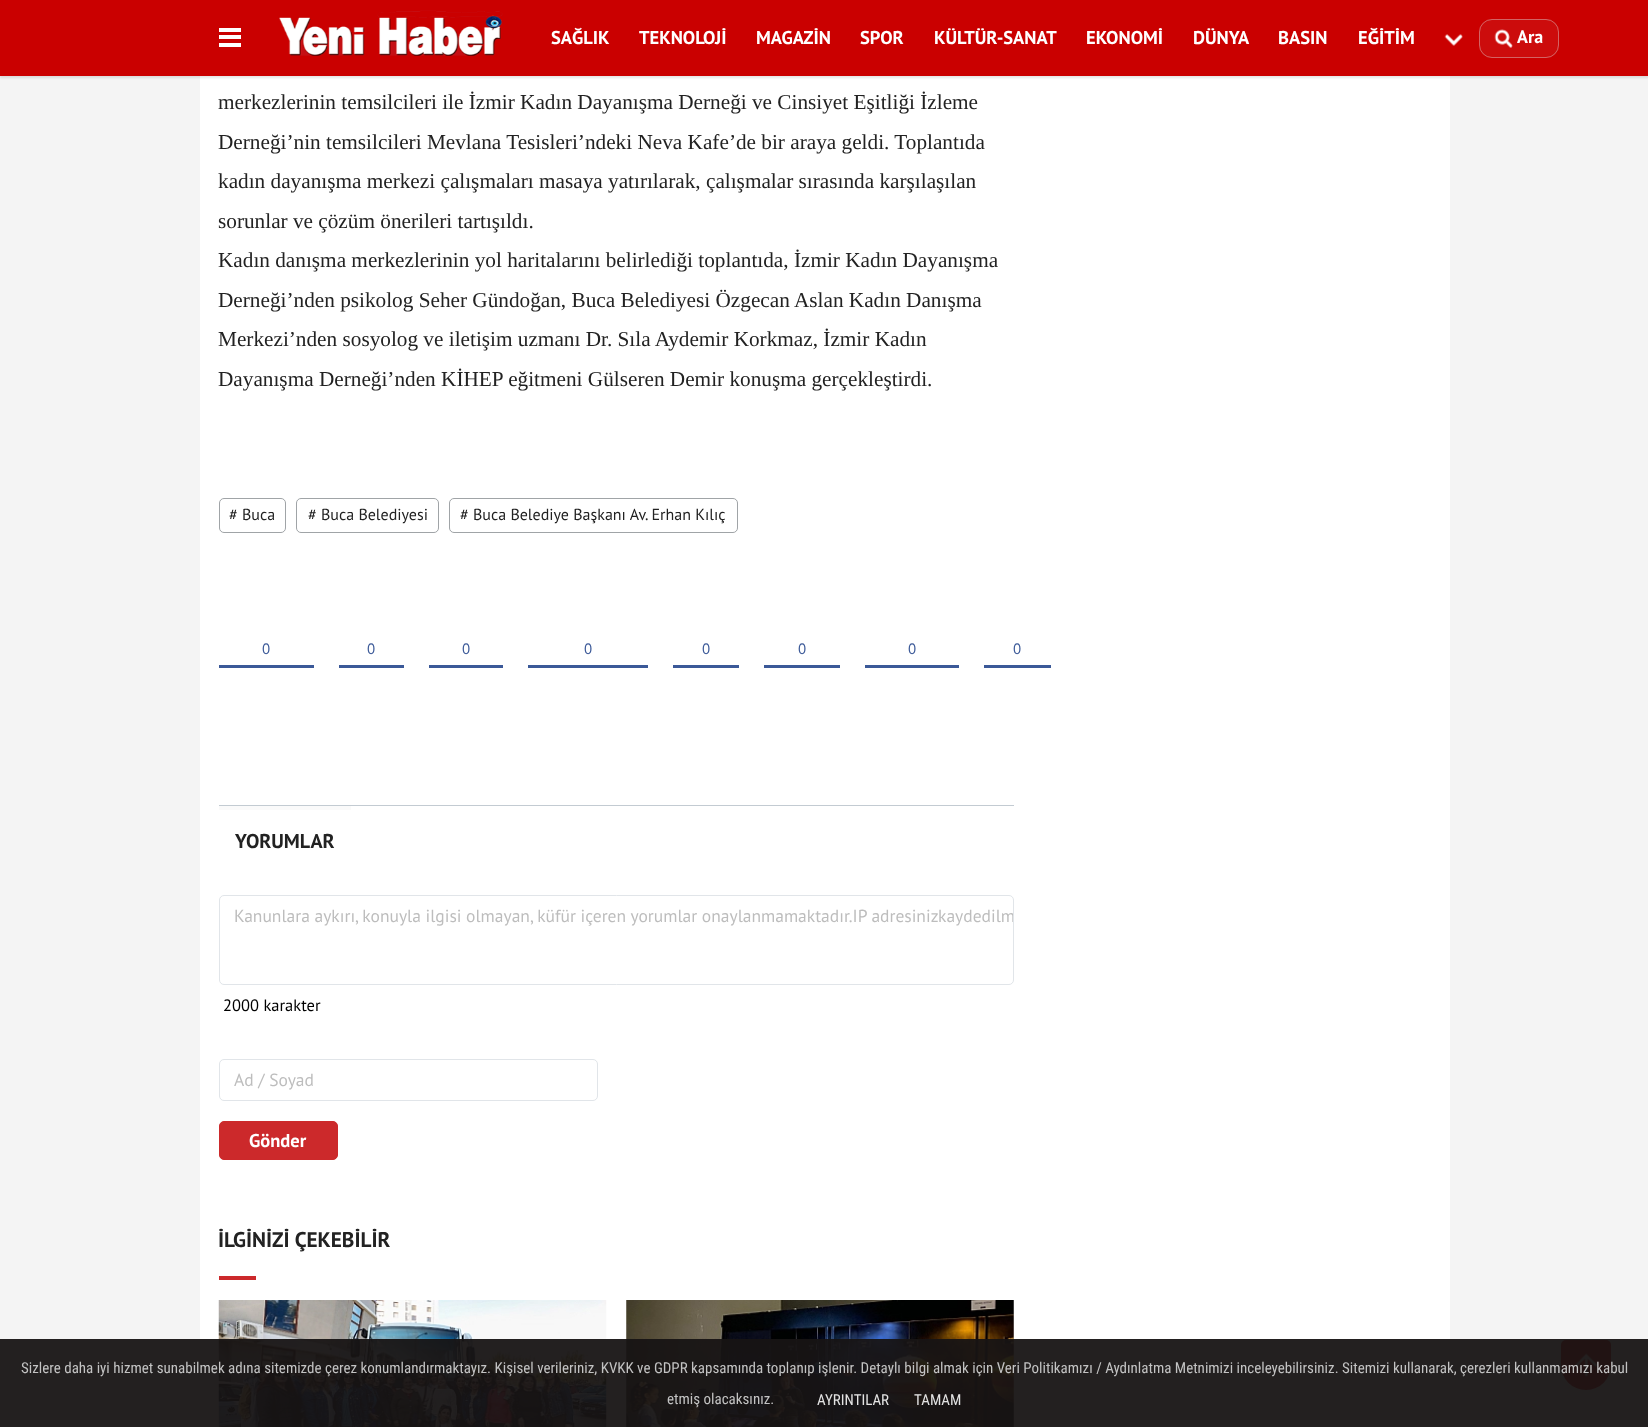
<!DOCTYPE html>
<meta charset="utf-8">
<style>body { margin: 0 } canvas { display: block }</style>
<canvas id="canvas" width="1648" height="1427"></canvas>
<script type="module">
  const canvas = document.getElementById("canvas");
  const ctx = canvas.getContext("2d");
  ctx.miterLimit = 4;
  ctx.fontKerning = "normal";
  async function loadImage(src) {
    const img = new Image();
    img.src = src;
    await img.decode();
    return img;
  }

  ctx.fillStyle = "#f4f4f4";
  ctx.fillRect(0, 0, 1648, 1427);
  ctx.fillStyle = "#ffffff";
  ctx.fillRect(200, 76, 1250, 1351);
  ctx.fillStyle = "rgba(0, 0, 0, 0.1)";
  ctx.filter = "blur(1px)";
  ctx.beginPath();
  ctx.rect(0, 1, 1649, 77);
  ctx.fill();
  ctx.filter = "none";
  ctx.fillStyle = "#ca0000";
  ctx.fillRect(0, 0, 1648, 76);
  ctx.fillStyle = "#ffffff";
  ctx.fillRect(219, 28, 22, 4);
  ctx.fillRect(219, 35, 22, 4);
  ctx.fillRect(219, 43, 22, 4);
  ctx.drawImage(await loadImage("img1.png"), 279, 10, 224, 46);
  ctx.font = "bold 18.5px PT Sans";
  ctx.fillText("SAĞLIK", 551, 44);
  ctx.fillText("TEKNOLOJİ", 639, 44);
  ctx.fillText("MAGAZİN", 756, 44);
  ctx.fillText("SPOR", 860, 44);
  ctx.fillText("KÜLTÜR-SANAT", 934, 44);
  ctx.fillText("EKONOMİ", 1086, 44);
  ctx.fillText("DÜNYA", 1193, 44);
  ctx.fillText("BASIN", 1278, 44);
  ctx.fillText("EĞİTİM", 1358, 44);
  ctx.drawImage(await loadImage("img2.png"), 1444, 34, 19, 12);
  ctx.fillStyle = "#cc0c0c";
  ctx.beginPath();
  ctx.roundRect(1479, 19, 80, 39, 13);
  ctx.fill();
  ctx.beginPath();
  ctx.roundRect(1479.5, 19.5, 79, 38, 12.5);
  ctx.strokeStyle = "rgba(221, 221, 221, 0.42)";
  ctx.stroke();
  ctx.drawImage(await loadImage("img3.png"), 1494, 29, 19, 19);
  ctx.font = "bold 18px PT Sans";
  ctx.fillStyle = "#ffffff";
  ctx.fillText("Ara", 1517, 43);
  ctx.font = "21.25px Liberation Serif";
  ctx.fillStyle = "#222222";
  ctx.fillText("merkezlerinin temsilcileri ile İzmir Kadın Dayanışma Derneği ve Cinsiyet Eşitliği İzleme", 218, 109);
  ctx.fillText("Derneği’nin temsilcileri Mevlana Tesisleri’ndeki Neva Kafe’de bir araya geldi. Toplantıda", 218, 149);
  ctx.fillText("kadın dayanışma merkezi çalışmaları masaya yatırılarak, çalışmalar sırasında karşılaşılan", 218, 188);
  ctx.fillText("sorunlar ve çözüm önerileri tartışıldı.", 218, 228);
  ctx.fillText("Kadın danışma merkezlerinin yol haritalarını belirlediği toplantıda, İzmir Kadın Dayanışma", 218, 267);
  ctx.fillText("Derneği’nden psikolog Seher Gündoğan, Buca Belediyesi Özgecan Aslan Kadın Danışma", 218, 307);
  ctx.fillText("Merkezi’nden sosyolog ve iletişim uzmanı Dr. Sıla Aydemir Korkmaz, İzmir Kadın", 218, 346);
  ctx.fillText("Dayanışma Derneği’nden KİHEP eğitmeni Gülseren Demir konuşma gerçekleştirdi.", 218, 386);
  ctx.beginPath();
  ctx.roundRect(219.5, 498.5, 66, 34, 4.5);
  ctx.strokeStyle = "#a0a4a7";
  ctx.stroke();
  ctx.font = "16px PT Sans";
  ctx.fillText("# Buca", 229, 520);
  ctx.beginPath();
  ctx.roundRect(296.5, 498.5, 142, 34, 4.5);
  ctx.stroke();
  ctx.fillText("# Buca Belediyesi", 308, 520);
  ctx.beginPath();
  ctx.roundRect(449.5, 498.5, 288, 34, 4.5);
  ctx.stroke();
  ctx.fillText("# Buca Belediye Başkanı Av. Erhan Kılıç", 460, 520);
  ctx.fillStyle = "#3b5998";
  ctx.fillRect(219, 665, 95, 3);
  ctx.font = "15px PT Sans";
  ctx.fillText("0", 262, 654);
  ctx.fillRect(339, 665, 65, 3);
  ctx.fillText("0", 367, 654);
  ctx.fillRect(429, 665, 74, 3);
  ctx.fillText("0", 462, 654);
  ctx.fillRect(528, 665, 120, 3);
  ctx.fillText("0", 584, 654);
  ctx.fillRect(673, 665, 66, 3);
  ctx.fillText("0", 702, 654);
  ctx.fillRect(764, 665, 76, 3);
  ctx.fillText("0", 798, 654);
  ctx.fillRect(865, 665, 94, 3);
  ctx.fillText("0", 908, 654);
  ctx.fillRect(984, 665, 67, 3);
  ctx.fillText("0", 1013, 654);
  ctx.fillStyle = "#c3cbd2";
  ctx.fillRect(219, 805, 795, 1);
  ctx.fillStyle = "#fafafa";
  ctx.fillRect(219, 806, 132, 4);
  ctx.font = "bold 20px PT Sans";
  ctx.fillStyle = "#222222";
  ctx.fillText("YORUMLAR", 235, 848);
  ctx.beginPath();
  ctx.roundRect(219.5, 895.5, 794, 89, 4.5);
  ctx.strokeStyle = "#e1e5e9";
  ctx.stroke();
  ctx.font = "17.5px PT Sans";
  ctx.fillStyle = "#bdbdbd";
  ctx.fillText("Kanunlara aykırı, konuyla ilgisi olmayan, küfür içeren yorumlar onaylanmamaktadır.IP adresiniz", 234, 922);
  ctx.save();
  ctx.beginPath();
  ctx.roundRect(220, 896, 793, 88, 4);
  ctx.clip();
  ctx.fillText("kaydedilm", 938, 922);
  ctx.restore();
  ctx.font = "16.5px PT Sans";
  ctx.fillStyle = "#000000";
  ctx.fillText("2000 karakter", 223, 1011);
  ctx.beginPath();
  ctx.roundRect(219.5, 1059.5, 378, 41, 4.5);
  ctx.stroke();
  ctx.font = "17.5px PT Sans";
  ctx.fillStyle = "#bdbdbd";
  ctx.fillText("Ad / Soyad", 234, 1086);
  ctx.fillStyle = "#cc292b";
  ctx.beginPath();
  ctx.roundRect(219.5, 1121.5, 118, 38, 4.5);
  ctx.fill();
  ctx.strokeStyle = "#cc292b";
  ctx.stroke();
  ctx.font = "bold 18.5px PT Sans";
  ctx.fillStyle = "#ffffff";
  ctx.fillText("Gönder", 249, 1147);
  ctx.font = "bold 21.25px PT Sans";
  ctx.fillStyle = "#222222";
  ctx.fillText("İLGİNİZİ ÇEKEBİLİR", 218, 1247);
  ctx.fillStyle = "#cc292b";
  ctx.fillRect(219, 1276, 37, 4);
  ctx.drawImage(await loadImage("img4.png"), 218, 1300, 389, 127);
  ctx.drawImage(await loadImage("img5.png"), 626, 1300, 388, 127);
  ctx.fillStyle = "#cc0700";
  ctx.beginPath();
  ctx.roundRect(1561, 1340, 50, 50, [5, 5, 25, 25]);
  ctx.fill();
  ctx.drawImage(await loadImage("img6.png"), 1574, 1353, 24, 24);
  ctx.fillStyle = "rgba(23, 20, 20, 0.95)";
  ctx.fillRect(0, 1339, 1648, 88);
  ctx.font = "15px Roboto Condensed";
  ctx.fillStyle = "#c3c3c3";
  ctx.fillText("Sizlere daha iyi hizmet sunabilmek adına sitemizde çerez konumlandırmaktayız. Kişisel verileriniz, KVKK ve GDPR kapsamında toplanıp işlenir. Detaylı bilgi almak için Veri Politikamızı / Aydınlatma Metnimizi inceleyebilirsiniz. Sitemizi kullanarak, çerezleri kullanmamızı kabul", 21, 1373);
  ctx.fillText("etmiş olacaksınız.", 667, 1404);
  ctx.fillStyle = "#e3e3e3";
  ctx.fillText("AYRINTILAR", 817, 1405);
  ctx.fillText("TAMAM", 914, 1405);
</script>
